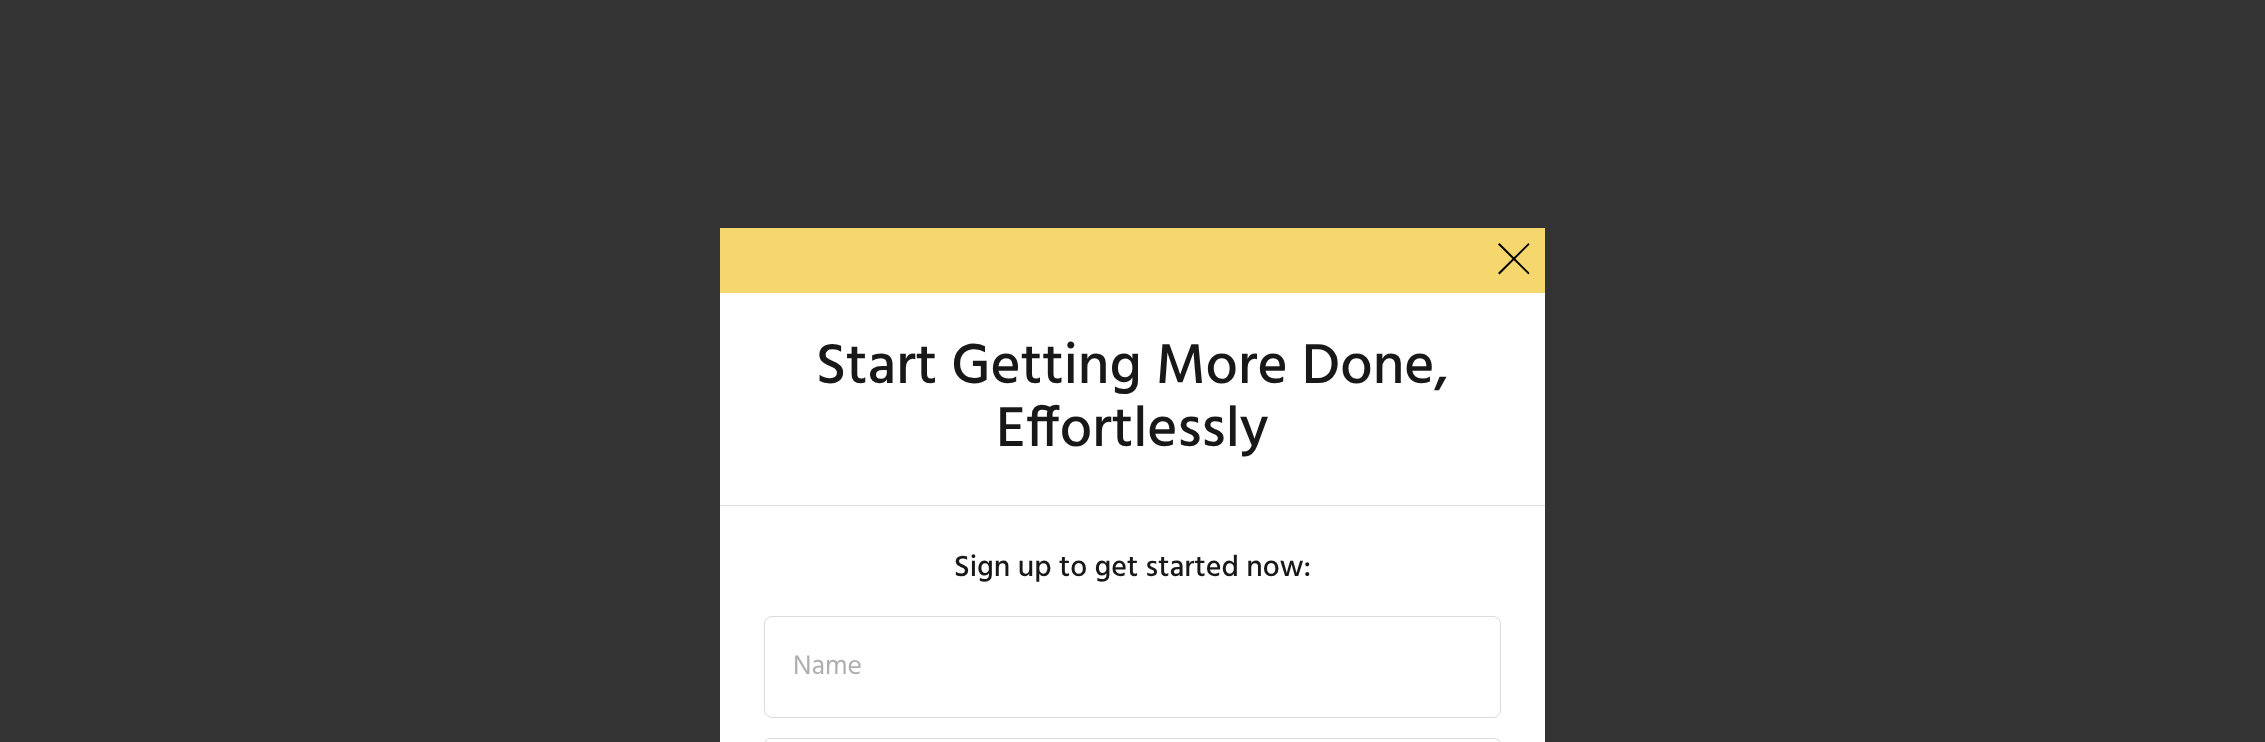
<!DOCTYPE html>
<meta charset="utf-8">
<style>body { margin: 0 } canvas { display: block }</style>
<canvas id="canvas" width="2265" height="742"></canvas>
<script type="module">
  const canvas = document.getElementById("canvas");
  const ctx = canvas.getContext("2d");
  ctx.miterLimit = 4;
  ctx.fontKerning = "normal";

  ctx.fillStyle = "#333333";
  ctx.fillRect(0, 0, 2265, 742);
  ctx.fillStyle = "#ffffff";
  ctx.fillRect(720, 293, 825, 449);
  ctx.fillStyle = "#f5d76e";
  ctx.fillRect(720, 228, 825, 65);
  ctx.fillStyle = "#000000";
  ctx.beginPath();
  ctx.moveTo(1498, 244.5);
  ctx.lineTo(1499.5, 243);
  ctx.lineTo(1529.5, 273);
  ctx.lineTo(1528.5, 274.5);
  ctx.closePath();
  ctx.fill();
  ctx.beginPath();
  ctx.moveTo(1528.5, 243);
  ctx.lineTo(1529.5, 244.5);
  ctx.lineTo(1499.5, 274.5);
  ctx.lineTo(1498, 273);
  ctx.closePath();
  ctx.fill();
  ctx.font = "500 57.5px Hind";
  ctx.fillStyle = "#191818";
  ctx.fillText("Start Getting More Done,", 816, 383);
  ctx.fillText("Effortlessly", 996, 446);
  ctx.fillStyle = "#e2e2e2";
  ctx.fillRect(720, 505, 825, 1);
  ctx.font = "500 30px Hind";
  ctx.fillStyle = "#191818";
  ctx.fillText("Sign up to get started now:", 954, 576);
  ctx.beginPath();
  ctx.roundRect(764.5, 616.5, 736, 101, 7.5);
  ctx.strokeStyle = "#dbdbdb";
  ctx.stroke();
  ctx.font = "27.5px Hind";
  ctx.fillStyle = "#afafaf";
  ctx.fillText("Name", 793, 674);
  ctx.beginPath();
  ctx.roundRect(764.5, 738.5, 736, 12, 7.5);
  ctx.stroke();
</script>
